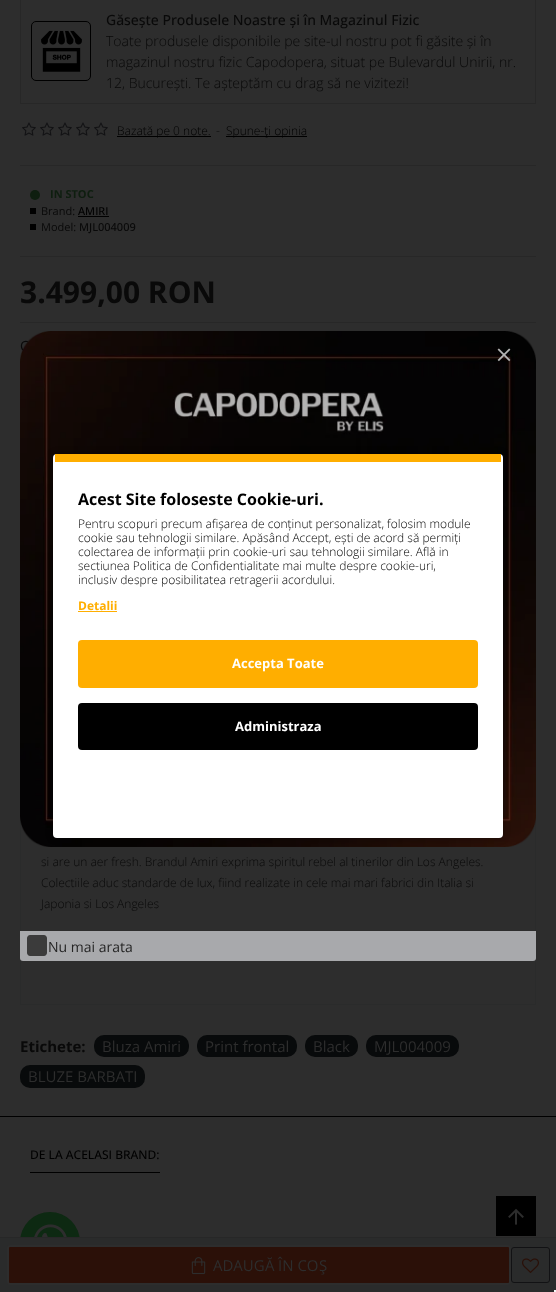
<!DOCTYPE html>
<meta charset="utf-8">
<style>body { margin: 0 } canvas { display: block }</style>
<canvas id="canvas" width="556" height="1292"></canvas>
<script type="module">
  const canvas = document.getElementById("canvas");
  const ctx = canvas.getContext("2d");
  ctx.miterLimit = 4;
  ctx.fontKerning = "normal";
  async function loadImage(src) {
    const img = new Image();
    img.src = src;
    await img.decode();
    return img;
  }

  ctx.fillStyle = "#2d2d2d";
  ctx.fillRect(0, 0, 556, 1292);
  ctx.strokeStyle = "#272727";
  ctx.strokeRect(20.5, -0.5, 515, 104);
  ctx.beginPath();
  ctx.roundRect(31.5, 21.5, 59, 59, 4.5);
  ctx.strokeStyle = "#000000";
  ctx.stroke();
  ctx.drawImage(await loadImage("img1.png"), 41, 30, 41, 42);
  ctx.font = "500 14px Open Sans";
  ctx.fillStyle = "#090909";
  ctx.fillText("Găsește Produsele Noastre și în Magazinul Fizic", 106, 25);
  ctx.font = "300 14px Open Sans";
  ctx.fillText("Toate produsele disponibile pe site-ul nostru pot fi găsite și în", 106, 46);
  ctx.fillText("magazinul nostru fizic Capodopera, situat pe Bulevardul Unirii, nr.", 106, 67);
  ctx.fillText("12, București. Te așteptăm cu drag să ne vizitezi!", 106, 88);
  ctx.fillStyle = "#272727";
  ctx.fillRect(20, 165, 516, 1);
  ctx.drawImage(await loadImage("img2.png"), 22, 122, 14, 14);
  ctx.drawImage(await loadImage("img2.png"), 40, 122, 14, 14);
  ctx.drawImage(await loadImage("img2.png"), 58, 122, 14, 14);
  ctx.drawImage(await loadImage("img2.png"), 76, 122, 14, 14);
  ctx.drawImage(await loadImage("img2.png"), 94, 122, 14, 14);
  ctx.fillStyle = "#000000";
  ctx.fillRect(117, 136, 94, 1);
  ctx.font = "300 12px Open Sans";
  ctx.fillText("Bazată pe 0 note.", 117, 135);
  ctx.fillStyle = "#090909";
  ctx.fillText("-", 216, 135);
  ctx.fillStyle = "#000000";
  ctx.fillRect(226, 136, 81, 1);
  ctx.fillText("Spune-ţi opinia", 226, 135);
  ctx.fillStyle = "#272727";
  ctx.fillRect(20, 256, 516, 1);
  ctx.fillStyle = "#0e1e0f";
  ctx.beginPath();
  ctx.arc(35, 195, 5, 0, Math.PI * 2);
  ctx.fill();
  ctx.font = "bold 11px Open Sans";
  ctx.fillText("IN STOC", 50, 198);
  ctx.fillStyle = "#000000";
  ctx.fillRect(30, 208, 6, 6);
  ctx.font = "11px Open Sans";
  ctx.fillStyle = "#090909";
  ctx.fillText("Brand:", 41, 215);
  ctx.font = "500 11px Open Sans";
  ctx.fillStyle = "#000000";
  ctx.fillText("AMIRI", 78, 215);
  ctx.fillRect(78, 216, 31, 1);
  ctx.fillRect(30, 224, 6, 6);
  ctx.font = "11px Open Sans";
  ctx.fillStyle = "#090909";
  ctx.fillText("Model:", 41, 231);
  ctx.font = "500 11px Open Sans";
  ctx.fillText("MJL004009", 79, 231);
  ctx.font = "bold 30px Open Sans";
  ctx.fillText("3.499,00 RON", 20, 303);
  ctx.fillStyle = "#272727";
  ctx.fillRect(20, 322, 516, 1);
  ctx.font = "14px Open Sans";
  ctx.fillStyle = "#090909";
  ctx.fillText("C", 20, 351);
  ctx.fillStyle = "#0d2912";
  ctx.beginPath();
  ctx.arc(50, 1242, 30, 0, Math.PI * 2);
  ctx.fill();
  ctx.fillStyle = "#2a2b2b";
  ctx.fillRect(0, 1238, 556, 54);
  ctx.fillStyle = "#272727";
  ctx.fillRect(0, 1237, 556, 1);
  ctx.fillStyle = "#2b1008";
  ctx.beginPath();
  ctx.roundRect(8, 1246, 502, 38, 2);
  ctx.fill();
  ctx.strokeStyle = "#2d2d2d";
  ctx.lineWidth = 2;
  ctx.stroke();
  ctx.drawImage(await loadImage("img3.png"), 191, 1257, 15, 18);
  ctx.font = "15px Open Sans";
  ctx.fillStyle = "#2d2d2d";
  ctx.fillText("ADAUG", 213, 1271);
  ctx.font = "15px 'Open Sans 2'";
  ctx.fillText("Ă", 265, 1271);
  ctx.font = "15px Open Sans";
  ctx.fillText("ÎN CO", 278, 1271);
  ctx.font = "15px 'Open Sans 2'";
  ctx.fillText("Ş", 319, 1271);
  ctx.beginPath();
  ctx.roundRect(511.5, 1247.5, 38, 35, 2.5);
  ctx.strokeStyle = "#121214";
  ctx.lineWidth = 1;
  ctx.stroke();
  ctx.drawImage(await loadImage("img4.png"), 522, 1258, 17, 15);
  ctx.strokeStyle = "#2a2b2b";
  ctx.strokeRect(20.5, 609.5, 515, 395);
  ctx.font = "300 12px Open Sans";
  ctx.fillStyle = "#090909";
  ctx.fillText("si are un aer fresh. Brandul Amiri exprima spiritul rebel al tinerilor din Los Angeles.", 41, 866);
  ctx.fillText("Colectiile aduc standarde de lux, fiind realizate in cele mai mari fabrici din Italia si", 41, 887);
  ctx.fillText("Japonia si Los Angeles", 41, 908);
  ctx.font = "bold 15px Open Sans";
  ctx.fillText("Etichete:", 20, 1052);
  ctx.fillStyle = "#080a0b";
  ctx.beginPath();
  ctx.roundRect(94, 1035, 95, 22, 10);
  ctx.fill();
  ctx.font = "15px Open Sans";
  ctx.fillStyle = "#2d2d2d";
  ctx.fillText("Bluza Amiri", 102, 1052);
  ctx.fillStyle = "#080a0b";
  ctx.beginPath();
  ctx.roundRect(197, 1035, 100, 22, 10);
  ctx.fill();
  ctx.fillStyle = "#2d2d2d";
  ctx.fillText("Print frontal", 205, 1052);
  ctx.fillStyle = "#080a0b";
  ctx.beginPath();
  ctx.roundRect(305, 1035, 53, 22, 10);
  ctx.fill();
  ctx.fillStyle = "#2d2d2d";
  ctx.fillText("Black", 313, 1052);
  ctx.fillStyle = "#080a0b";
  ctx.beginPath();
  ctx.roundRect(366, 1035, 93, 22, 10);
  ctx.fill();
  ctx.fillStyle = "#2d2d2d";
  ctx.fillText("MJL004009", 374, 1052);
  ctx.fillStyle = "#080a0b";
  ctx.beginPath();
  ctx.roundRect(20, 1065, 125, 23, 10);
  ctx.fill();
  ctx.fillStyle = "#2d2d2d";
  ctx.fillText("BLUZE BARBATI", 28, 1082);
  ctx.fillStyle = "#000000";
  ctx.fillRect(0, 1116, 556, 1);
  ctx.fillRect(30, 1172, 130, 1);
  ctx.font = "500 12px Open Sans";
  ctx.fillText("DE LA ACELASI BRAND:", 30, 1159);
  ctx.drawImage(await loadImage("img6.png"), 20, 331, 516, 516);
  ctx.fillStyle = "rgba(0, 0, 0, 0.3)";
  ctx.filter = "blur(3.5px)";
  ctx.beginPath();
  ctx.roundRect(53, 454, 450, 384, 4);
  ctx.fill();
  ctx.filter = "none";
  ctx.fillStyle = "#ffffff";
  ctx.beginPath();
  ctx.roundRect(53, 454, 450, 384, 4);
  ctx.fill();
  ctx.fillStyle = "#ffae00";
  ctx.fillRect(55, 454, 446, 8);
  ctx.font = "bold 16px Open Sans";
  ctx.fillStyle = "#000000";
  ctx.fillText("Acest Site foloseste Cookie-uri.", 78, 505);
  ctx.font = "300 12px Open Sans";
  ctx.fillText("Pentru scopuri precum afișarea de conținut personalizat, folosim module", 78, 528);
  ctx.fillText("cookie sau tehnologii similare. Apăsând Accept, ești de acord să permiți", 78, 542);
  ctx.fillText("colectarea de informații prin cookie-uri sau tehnologii similare. Află in", 78, 556);
  ctx.fillText("sectiunea Politica de Confidentialitate mai multe despre cookie-uri,", 78, 570);
  ctx.fillText("inclusiv despre posibilitatea retragerii acordului.", 78, 584);
  ctx.font = "bold 12px Open Sans";
  ctx.fillStyle = "#ffae00";
  ctx.fillText("Detalii", 78, 610);
  ctx.fillRect(78, 611, 39, 1);
  ctx.beginPath();
  ctx.roundRect(78, 640, 400, 48, 4);
  ctx.fill();
  ctx.font = "bold 13px Open Sans";
  ctx.fillStyle = "#ffffff";
  ctx.fillText("Accepta Toate", 232, 668);
  ctx.fillStyle = "#000000";
  ctx.beginPath();
  ctx.roundRect(78, 703, 400, 47, 4);
  ctx.fill();
  ctx.fillStyle = "#ffffff";
  ctx.fillText("Administraza", 235, 731);
  ctx.drawImage(await loadImage("img5.png"), 497, 348, 14, 14);
  ctx.fillStyle = "#a8a9ac";
  ctx.beginPath();
  ctx.roundRect(20, 931, 516, 30, [0, 0, 3, 3]);
  ctx.fill();
  ctx.fillStyle = "#3b3b3b";
  ctx.beginPath();
  ctx.moveTo(30, 935);
  ctx.lineTo(44, 935);
  ctx.bezierCurveTo(45.5, 935, 47, 936.5, 47, 938);
  ctx.lineTo(47, 953);
  ctx.bezierCurveTo(47, 954.5, 45.5, 956, 44, 956);
  ctx.lineTo(30, 956);
  ctx.bezierCurveTo(28.5, 956, 27, 954.5, 27, 953);
  ctx.lineTo(27, 938);
  ctx.bezierCurveTo(27, 936.5, 28.5, 935, 30, 935);
  ctx.closePath();
  ctx.fill();
  ctx.font = "14px Open Sans";
  ctx.fillStyle = "#242424";
  ctx.fillText("Nu mai arata", 48, 952);
  ctx.drawImage(await loadImage("img7.png"), 34, 1224, 33, 13);
  ctx.fillStyle = "#000000";
  ctx.fillRect(496, 1196, 40, 40);
  ctx.drawImage(await loadImage("img8.png"), 508, 1208, 16, 17);
  ctx.fillStyle = "#f5f5f5";
  ctx.fillRect(554, 1290, 2, 2);
</script>
